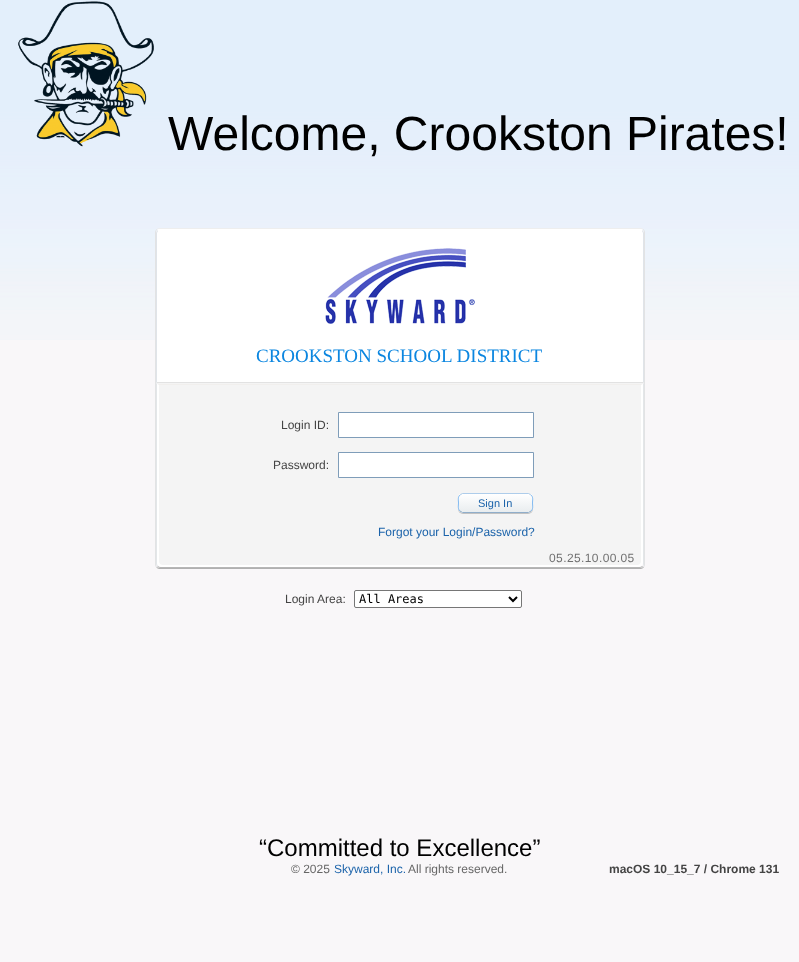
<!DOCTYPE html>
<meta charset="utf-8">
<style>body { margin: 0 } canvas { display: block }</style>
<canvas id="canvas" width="799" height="962"></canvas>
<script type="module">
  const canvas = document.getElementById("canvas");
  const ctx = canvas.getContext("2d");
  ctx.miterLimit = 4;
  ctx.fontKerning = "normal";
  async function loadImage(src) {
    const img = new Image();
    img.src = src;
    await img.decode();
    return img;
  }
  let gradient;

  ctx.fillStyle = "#f9f7f9";
  ctx.fillRect(0, 0, 799, 962);
  ctx.drawImage(await loadImage("img1.png"), 0, 0, 799, 340);
  ctx.drawImage(await loadImage("img2.png"), 18, 1, 136, 146);
  ctx.font = "48px Liberation Sans";
  ctx.fillStyle = "#000000";
  ctx.fillText("Welcome, Crookston Pirates!", 168, 150);
  ctx.beginPath();
  ctx.moveTo(156.5, 229.5);
  ctx.lineTo(159, 228.5);
  ctx.lineTo(641, 228.5);
  ctx.lineTo(643.5, 229.5);
  ctx.strokeStyle = "#eeeeee";
  ctx.stroke();
  ctx.beginPath();
  ctx.moveTo(643.5, 229.5);
  ctx.lineTo(644.5, 232);
  ctx.lineTo(644.5, 565);
  ctx.lineTo(643.5, 567.5);
  ctx.strokeStyle = "#e2e3e4";
  ctx.stroke();
  ctx.beginPath();
  ctx.moveTo(643.5, 567.5);
  ctx.lineTo(641, 568.5);
  ctx.lineTo(159, 568.5);
  ctx.lineTo(156.5, 567.5);
  ctx.strokeStyle = "#b0b0b0";
  ctx.stroke();
  ctx.beginPath();
  ctx.moveTo(156.5, 567.5);
  ctx.lineTo(155.5, 565);
  ctx.lineTo(155.5, 232);
  ctx.lineTo(156.5, 229.5);
  ctx.strokeStyle = "#e2e3e4";
  ctx.stroke();
  ctx.fillStyle = "#ffffff";
  ctx.beginPath();
  ctx.roundRect(156, 229, 488, 154, [4, 4, 0, 0]);
  ctx.fill();
  ctx.beginPath();
  ctx.moveTo(160, 229);
  ctx.lineTo(157, 230);
  ctx.lineTo(158, 231);
  ctx.lineTo(160, 230);
  ctx.lineTo(640, 230);
  ctx.lineTo(642, 231);
  ctx.lineTo(643, 230);
  ctx.lineTo(640, 229);
  ctx.closePath();
  ctx.fill();
  ctx.fillStyle = "#e0e4e9";
  ctx.beginPath();
  ctx.moveTo(644, 383);
  ctx.lineTo(644, 233);
  ctx.lineTo(643, 230);
  ctx.lineTo(642, 231);
  ctx.lineTo(643, 233);
  ctx.lineTo(643, 382);
  ctx.closePath();
  ctx.fill();
  ctx.fillStyle = "#e2e2e2";
  ctx.beginPath();
  ctx.moveTo(644, 383);
  ctx.lineTo(643, 382);
  ctx.lineTo(157, 382);
  ctx.lineTo(156, 383);
  ctx.closePath();
  ctx.fill();
  ctx.fillStyle = "#e0e4e9";
  ctx.beginPath();
  ctx.moveTo(156, 383);
  ctx.lineTo(157, 382);
  ctx.lineTo(157, 233);
  ctx.lineTo(158, 231);
  ctx.lineTo(157, 230);
  ctx.lineTo(156, 233);
  ctx.closePath();
  ctx.fill();
  ctx.drawImage(await loadImage("img3.png"), 325, 248, 150, 76);
  ctx.font = "19px Liberation Serif";
  ctx.fillStyle = "#0b86e0";
  ctx.fillText("CROOKSTON SCHOOL DISTRICT", 256, 362);
  ctx.fillStyle = "#f4f4f4";
  ctx.beginPath();
  ctx.moveTo(156, 383);
  ctx.lineTo(157, 384);
  ctx.lineTo(643, 384);
  ctx.lineTo(644, 383);
  ctx.closePath();
  ctx.fill();
  ctx.fillStyle = "#e3e6e9";
  ctx.beginPath();
  ctx.moveTo(644, 383);
  ctx.lineTo(643, 384);
  ctx.lineTo(643, 566);
  ctx.lineTo(642, 566);
  ctx.lineTo(643, 567);
  ctx.lineTo(644, 564);
  ctx.closePath();
  ctx.fill();
  ctx.fillStyle = "#b6b6b6";
  ctx.beginPath();
  ctx.moveTo(160, 568);
  ctx.lineTo(640, 568);
  ctx.lineTo(643, 567);
  ctx.lineTo(642, 566);
  ctx.lineTo(640, 567);
  ctx.lineTo(160, 567);
  ctx.lineTo(158, 566);
  ctx.lineTo(157, 567);
  ctx.closePath();
  ctx.fill();
  ctx.fillStyle = "#e3e6e9";
  ctx.beginPath();
  ctx.moveTo(157, 384);
  ctx.lineTo(156, 383);
  ctx.lineTo(156, 564);
  ctx.lineTo(157, 567);
  ctx.lineTo(158, 566);
  ctx.lineTo(157, 564);
  ctx.closePath();
  ctx.fill();
  ctx.fillStyle = "#f4f4f4";
  ctx.beginPath();
  ctx.roundRect(159, 385, 482, 180, [0, 0, 3, 3]);
  ctx.fill();
  ctx.fillStyle = "#f1efed";
  ctx.beginPath();
  ctx.moveTo(157, 384);
  ctx.lineTo(159, 385);
  ctx.lineTo(641, 385);
  ctx.lineTo(643, 384);
  ctx.closePath();
  ctx.fill();
  ctx.fillStyle = "#ffffff";
  ctx.beginPath();
  ctx.moveTo(643, 384);
  ctx.lineTo(641, 385);
  ctx.lineTo(641, 562);
  ctx.lineTo(640, 564);
  ctx.lineTo(642, 566);
  ctx.bezierCurveTo(642, 565, 643, 564, 643, 562);
  ctx.closePath();
  ctx.fill();
  ctx.beginPath();
  ctx.moveTo(162, 567);
  ctx.lineTo(638, 567);
  ctx.bezierCurveTo(640, 567, 641, 566, 642, 566);
  ctx.lineTo(640, 564);
  ctx.lineTo(638, 565);
  ctx.lineTo(162, 565);
  ctx.lineTo(160, 564);
  ctx.lineTo(158, 566);
  ctx.bezierCurveTo(159, 566, 160, 567, 162, 567);
  ctx.closePath();
  ctx.fill();
  ctx.beginPath();
  ctx.moveTo(159, 385);
  ctx.lineTo(157, 384);
  ctx.lineTo(157, 563);
  ctx.lineTo(158, 566);
  ctx.lineTo(160, 564);
  ctx.lineTo(159, 562);
  ctx.closePath();
  ctx.fill();
  ctx.font = "12px Liberation Sans";
  ctx.fillStyle = "#444444";
  ctx.fillText("Login ID:", 281, 429);
  ctx.fillStyle = "#ffffff";
  ctx.beginPath();
  ctx.rect(338.5, 412.5, 195, 25);
  ctx.fill();
  ctx.strokeStyle = "#7f9db9";
  ctx.stroke();
  ctx.fillStyle = "#444444";
  ctx.fillText("Password:", 273, 469);
  ctx.fillStyle = "#ffffff";
  ctx.beginPath();
  ctx.rect(338.5, 452.5, 195, 25);
  ctx.fill();
  ctx.stroke();
  ctx.fillStyle = "#c2c2c2";
  ctx.filter = "blur(0.5px)";
  ctx.beginPath();
  ctx.roundRect(458, 494, 75, 20, 5);
  ctx.fill();
  ctx.filter = "none";
  ctx.save();
  ctx.beginPath();
  ctx.roundRect(458, 493, 75, 20, 5);
  ctx.clip();
  gradient = ctx.createLinearGradient(496, 476, 496, 494);
  gradient.addColorStop(0, "#ffffff");
  gradient.addColorStop(1, "#e9edef");
  ctx.fillStyle = gradient;
  ctx.fillRect(458, 493, 75, 1);
  gradient = ctx.createLinearGradient(496, 494, 496, 512);
  gradient.addColorStop(0, "#ffffff");
  gradient.addColorStop(1, "#e9edef");
  ctx.fillStyle = gradient;
  ctx.fillRect(458, 494, 75, 18);
  gradient = ctx.createLinearGradient(496, 512, 496, 530);
  gradient.addColorStop(0, "#ffffff");
  gradient.addColorStop(1, "#e9edef");
  ctx.fillStyle = gradient;
  ctx.fillRect(458, 512, 75, 1);
  ctx.restore();
  ctx.beginPath();
  ctx.moveTo(460, 495);
  ctx.lineTo(462.5, 493.5);
  ctx.lineTo(528.5, 493.5);
  ctx.lineTo(531, 495);
  ctx.strokeStyle = "#aecdeb";
  ctx.stroke();
  ctx.beginPath();
  ctx.moveTo(531, 495);
  ctx.bezierCurveTo(533.5, 497, 532.5, 500.5, 532.5, 503);
  ctx.bezierCurveTo(532.5, 505.5, 533.5, 509, 531, 511);
  ctx.strokeStyle = "#82baf1";
  ctx.stroke();
  ctx.beginPath();
  ctx.moveTo(531, 511);
  ctx.lineTo(528.5, 512.5);
  ctx.lineTo(462.5, 512.5);
  ctx.lineTo(460, 511);
  ctx.strokeStyle = "#90aeca";
  ctx.stroke();
  ctx.beginPath();
  ctx.moveTo(460, 511);
  ctx.bezierCurveTo(457.5, 509, 458.5, 505.5, 458.5, 503);
  ctx.bezierCurveTo(458.5, 500.5, 457.5, 497, 460, 495);
  ctx.strokeStyle = "#82baf1";
  ctx.stroke();
  ctx.font = "11px Liberation Sans";
  ctx.fillStyle = "#1b63aa";
  ctx.fillText("Sign In", 478, 507);
  ctx.font = "12px Liberation Sans";
  ctx.fillText("Forgot your Login/Password?", 378, 536);
  ctx.letterSpacing = "0.4px";
  ctx.fillStyle = "#707070";
  ctx.fillText("05.25.10.00.05", 549, 562);
  ctx.letterSpacing = "0px";
  ctx.fillStyle = "#444444";
  ctx.fillText("Login Area:", 285, 603);
  ctx.fillStyle = "#ffffff";
  ctx.beginPath();
  ctx.roundRect(354.5, 590.5, 167, 17, 1.5);
  ctx.fill();
  ctx.strokeStyle = "#767676";
  ctx.stroke();
  ctx.beginPath();
  ctx.moveTo(509, 597);
  ctx.lineTo(513, 601);
  ctx.lineTo(517, 597);
  ctx.strokeStyle = "#000000";
  ctx.lineWidth = 2;
  ctx.stroke();
  ctx.font = "12px DejaVu Sans Mono";
  ctx.fillStyle = "#000000";
  ctx.fillText("All Areas", 359, 603);
  ctx.font = "24px Liberation Sans";
  ctx.fillText("“Committed to Excellence”", 259, 856);
  ctx.font = "12px Liberation Sans";
  ctx.fillStyle = "#666666";
  ctx.fillText("© 2025", 291, 873);
  ctx.fillStyle = "#1b63aa";
  ctx.fillText("Skyward, Inc.", 334, 873);
  ctx.fillStyle = "#666666";
  ctx.fillText("All rights reserved.", 408, 873);
  ctx.font = "bold 12px Liberation Sans";
  ctx.fillStyle = "#444444";
  ctx.fillText("macOS 10_15_7 / Chrome 131", 609, 873);
</script>
